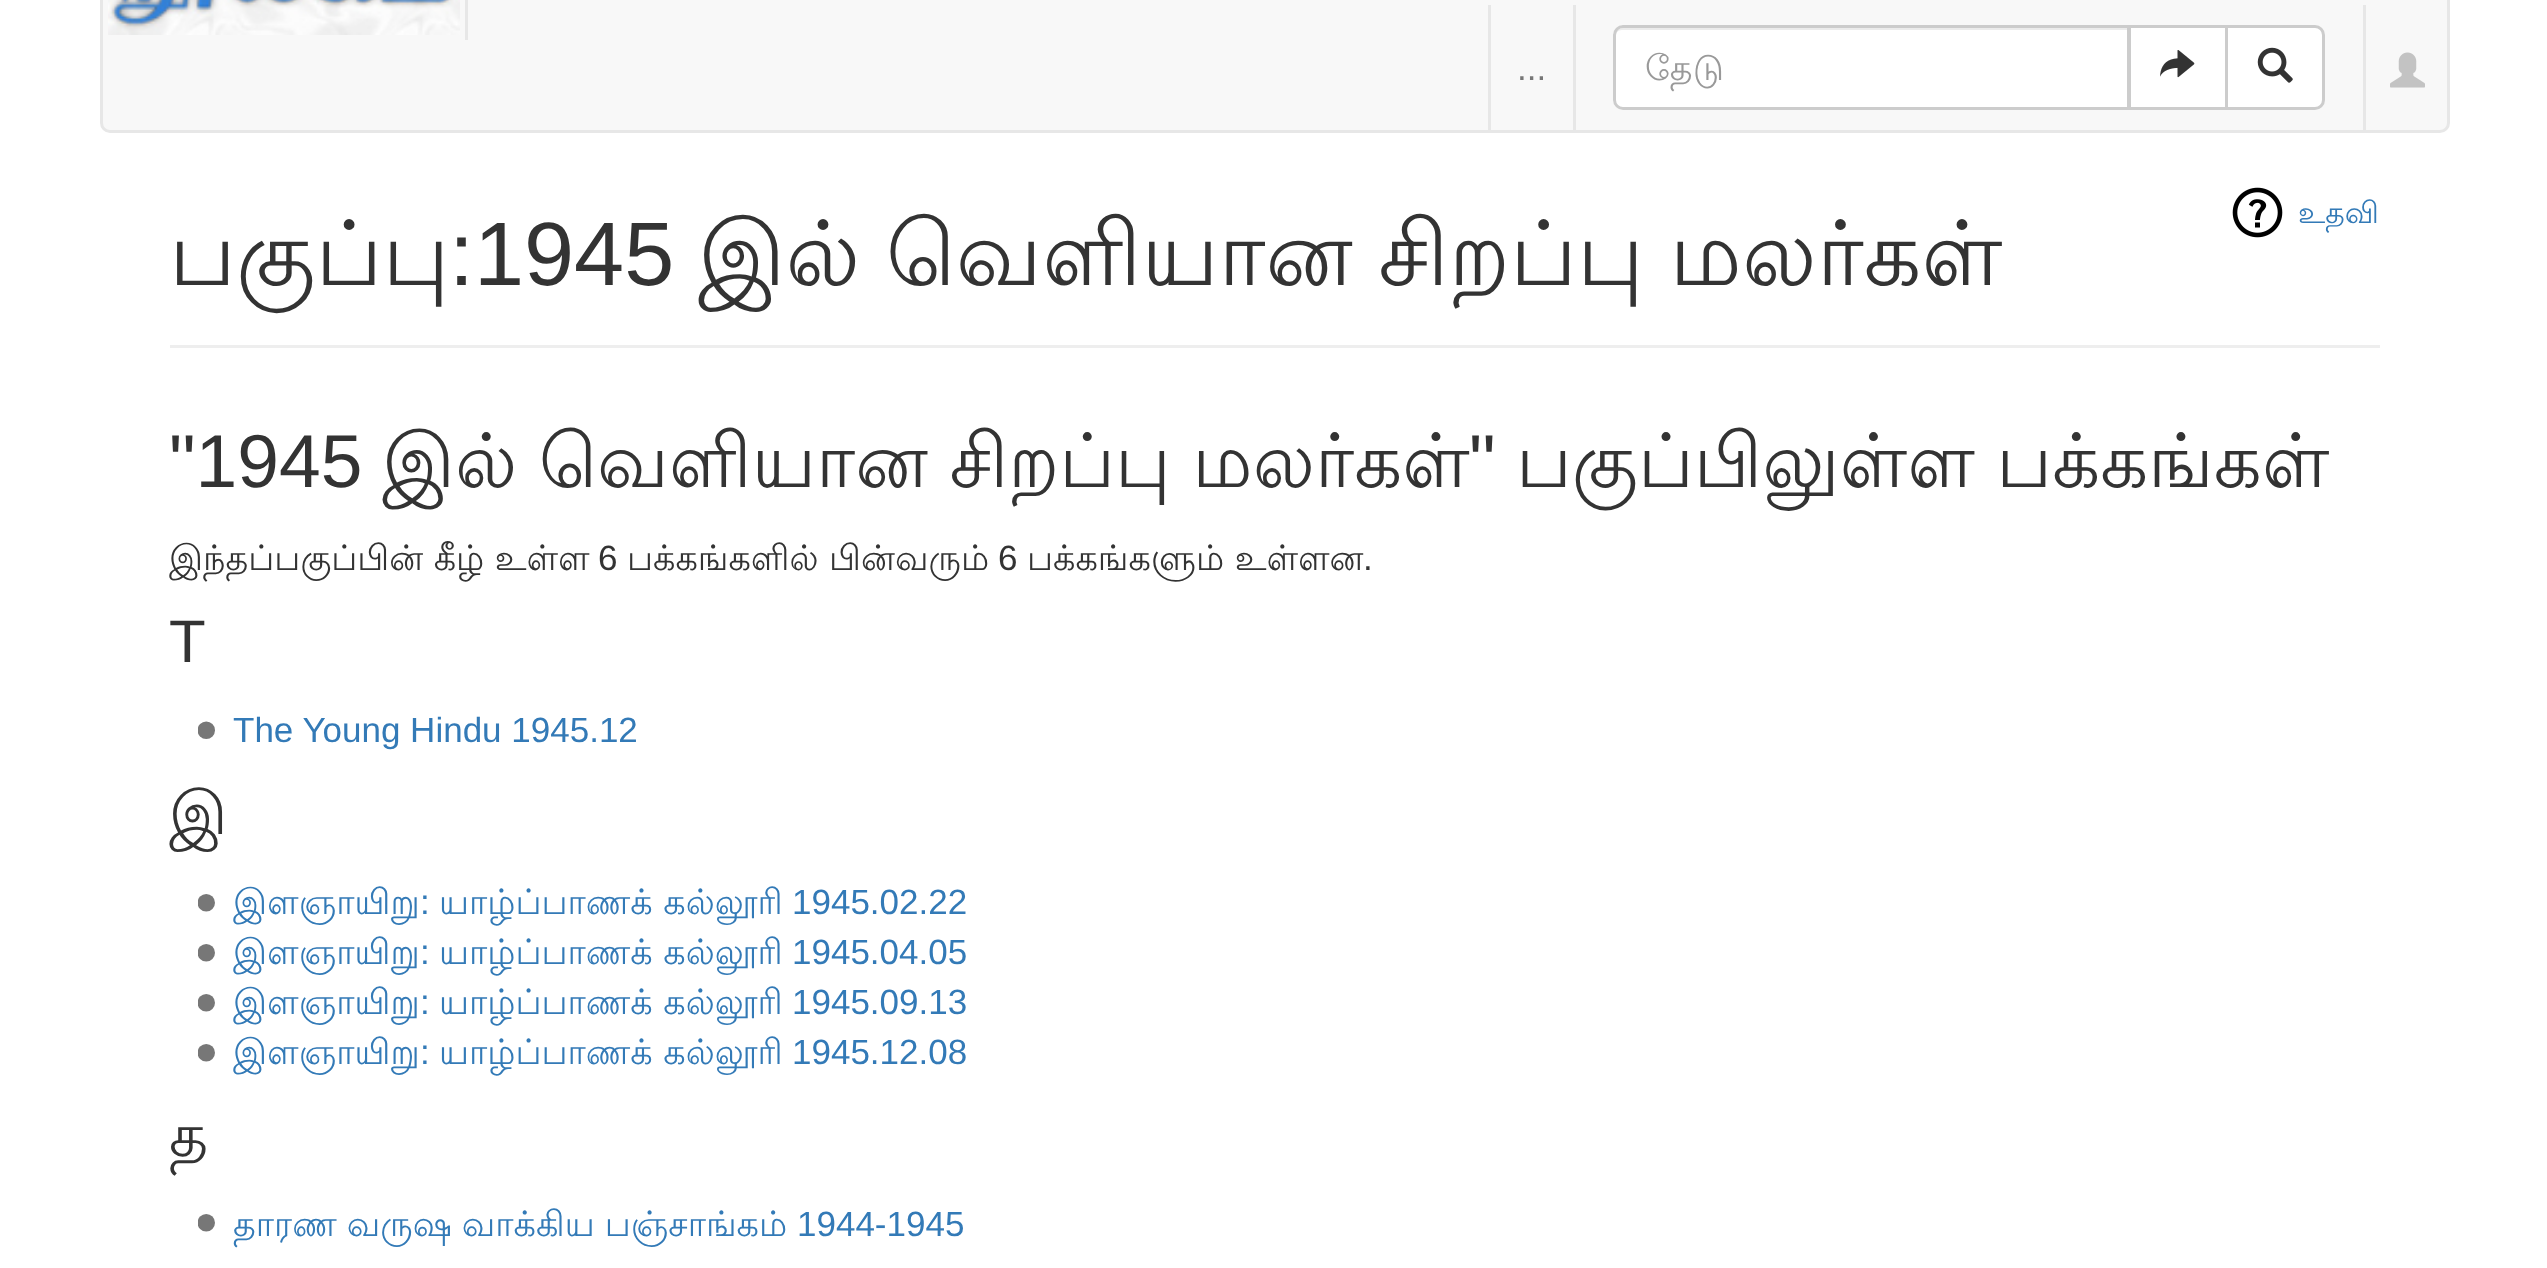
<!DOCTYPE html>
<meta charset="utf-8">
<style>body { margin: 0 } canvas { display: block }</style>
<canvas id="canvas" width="2547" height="1268"></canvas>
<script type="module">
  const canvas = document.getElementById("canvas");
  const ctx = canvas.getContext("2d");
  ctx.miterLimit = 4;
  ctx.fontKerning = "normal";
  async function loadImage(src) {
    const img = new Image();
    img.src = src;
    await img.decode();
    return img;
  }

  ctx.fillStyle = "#ffffff";
  ctx.fillRect(0, 0, 2547, 1268);
  ctx.fillStyle = "#f8f8f8";
  ctx.beginPath();
  ctx.roundRect(101.5, -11.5, 2347, 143, 8.5);
  ctx.fill();
  ctx.strokeStyle = "#e7e7e7";
  ctx.lineWidth = 3;
  ctx.stroke();
  ctx.fillStyle = "#e7e7e7";
  ctx.fillRect(465, 0, 3, 40);
  ctx.drawImage(await loadImage("img1.png"), 108, 0, 352, 35);
  ctx.fillRect(1573, 5, 3, 125);
  ctx.fillRect(1488, 5, 3, 125);
  ctx.font = "35px Liberation Sans";
  ctx.fillStyle = "#777777";
  ctx.fillText("...", 1517, 80);
  ctx.fillStyle = "#e7e7e7";
  ctx.fillRect(2363, 5, 3, 125);
  ctx.fillStyle = "#ffffff";
  ctx.beginPath();
  ctx.roundRect(1613, 25, 517, 85, [10, 0, 0, 10]);
  ctx.fill();
  ctx.fillStyle = "#ececec";
  ctx.beginPath();
  ctx.moveTo(1622, 30);
  ctx.lineTo(2128, 30);
  ctx.lineTo(2128, 28);
  ctx.lineTo(1623, 28);
  ctx.bezierCurveTo(1619, 28, 1615, 32, 1615, 36);
  ctx.lineTo(1615, 38);
  ctx.bezierCurveTo(1615, 33, 1618, 30, 1622, 30);
  ctx.closePath();
  ctx.fill();
  ctx.beginPath();
  ctx.roundRect(1614.5, 26.5, 514, 82, [8.5, 0, 0, 8.5]);
  ctx.strokeStyle = "#cccccc";
  ctx.stroke();
  ctx.font = "35px Lohit Tamil";
  ctx.fillStyle = "#999999";
  ctx.fillText("தேடு", 1645, 80);
  ctx.fillStyle = "#ffffff";
  ctx.beginPath();
  ctx.rect(2129.5, 26.5, 97, 82);
  ctx.fill();
  ctx.stroke();
  ctx.drawImage(await loadImage("img2.png"), 2160, 50, 35, 28);
  ctx.beginPath();
  ctx.roundRect(2226.5, 26.5, 97, 82, [0, 8.5, 8.5, 0]);
  ctx.fill();
  ctx.stroke();
  ctx.drawImage(await loadImage("img3.png"), 2257, 47, 36, 36);
  ctx.drawImage(await loadImage("img4.png"), 2390, 52, 35, 36);
  ctx.fillStyle = "#eeeeee";
  ctx.fillRect(170, 345, 2210, 3);
  ctx.font = "90px Lohit Tamil";
  ctx.fillStyle = "#333333";
  ctx.fillText("பகுப்பு", 169, 285);
  ctx.font = "90px Liberation Sans";
  ctx.fillText(":1945", 449, 285);
  ctx.wordSpacing = "-1.5px";
  ctx.font = "90px Lohit Tamil";
  ctx.fillText("இல் வெளியான சிறப்பு மலர்கள்", 698, 285);
  ctx.drawImage(await loadImage("img5.png"), 2232, 187, 51, 51);
  ctx.wordSpacing = "0px";
  ctx.font = "30px Lohit Tamil";
  ctx.fillStyle = "#337ab7";
  ctx.fillText("உதவி", 2298, 223);
  ctx.font = "75px Liberation Sans";
  ctx.fillStyle = "#333333";
  ctx.fillText("\"1945", 169, 487);
  ctx.wordSpacing = "-1px";
  ctx.font = "75px Lohit Tamil";
  ctx.fillText("இல் வெளியான சிறப்பு மலர்கள்", 382, 487);
  ctx.wordSpacing = "0px";
  ctx.font = "75px Liberation Sans";
  ctx.fillText("\"", 1469, 487);
  ctx.wordSpacing = "-1px";
  ctx.font = "75px Lohit Tamil";
  ctx.fillText("பகுப்பிலுள்ள பக்கங்கள்", 1516, 487);
  ctx.wordSpacing = "0px";
  ctx.font = "35px Lohit Tamil";
  ctx.fillText("இந்தப்பகுப்பின் கீழ் உள்ள", 169, 570);
  ctx.font = "35px Liberation Sans";
  ctx.fillText("6", 598, 570);
  ctx.font = "35px Lohit Tamil";
  ctx.fillText("பக்கங்களில் பின்வரும்", 627, 570);
  ctx.font = "35px Liberation Sans";
  ctx.fillText("6", 998, 570);
  ctx.font = "35px Lohit Tamil";
  ctx.fillText("பக்கங்களும் உள்ளன", 1027, 570);
  ctx.font = "35px Liberation Sans";
  ctx.fillText(".", 1363, 570);
  ctx.font = "60px Liberation Sans";
  ctx.fillText("T", 169, 662);
  ctx.drawImage(await loadImage("img6.png"), 198, 721, 17, 18);
  ctx.font = "35px Liberation Sans";
  ctx.fillStyle = "#337ab7";
  ctx.fillText("The Young Hindu 1945.12", 233, 742);
  ctx.font = "60px Lohit Tamil";
  ctx.fillStyle = "#333333";
  ctx.fillText("இ", 169, 834);
  ctx.drawImage(await loadImage("img7.png"), 198, 894, 17, 18);
  ctx.font = "35px Lohit Tamil";
  ctx.fillStyle = "#337ab7";
  ctx.fillText("இளஞாயிறு", 233, 914);
  ctx.font = "35px Liberation Sans";
  ctx.fillText(":", 420, 914);
  ctx.font = "35px Lohit Tamil";
  ctx.fillText("யாழ்ப்பாணக் கல்லூரி", 439, 914);
  ctx.font = "35px Liberation Sans";
  ctx.fillText("1945.02.22", 792, 914);
  ctx.drawImage(await loadImage("img8.png"), 198, 944, 17, 18);
  ctx.font = "35px Lohit Tamil";
  ctx.fillText("இளஞாயிறு", 233, 964);
  ctx.font = "35px Liberation Sans";
  ctx.fillText(":", 420, 964);
  ctx.font = "35px Lohit Tamil";
  ctx.fillText("யாழ்ப்பாணக் கல்லூரி", 439, 964);
  ctx.font = "35px Liberation Sans";
  ctx.fillText("1945.04.05", 792, 964);
  ctx.drawImage(await loadImage("img8.png"), 198, 994, 17, 18);
  ctx.font = "35px Lohit Tamil";
  ctx.fillText("இளஞாயிறு", 233, 1014);
  ctx.font = "35px Liberation Sans";
  ctx.fillText(":", 420, 1014);
  ctx.font = "35px Lohit Tamil";
  ctx.fillText("யாழ்ப்பாணக் கல்லூரி", 439, 1014);
  ctx.font = "35px Liberation Sans";
  ctx.fillText("1945.09.13", 792, 1014);
  ctx.drawImage(await loadImage("img8.png"), 198, 1044, 17, 18);
  ctx.font = "35px Lohit Tamil";
  ctx.fillText("இளஞாயிறு", 233, 1064);
  ctx.font = "35px Liberation Sans";
  ctx.fillText(":", 420, 1064);
  ctx.font = "35px Lohit Tamil";
  ctx.fillText("யாழ்ப்பாணக் கல்லூரி", 439, 1064);
  ctx.font = "35px Liberation Sans";
  ctx.fillText("1945.12.08", 792, 1064);
  ctx.font = "60px Lohit Tamil";
  ctx.fillStyle = "#333333";
  ctx.fillText("த", 169, 1156);
  ctx.drawImage(await loadImage("img8.png"), 198, 1214, 17, 18);
  ctx.wordSpacing = "-0.5px";
  ctx.font = "35px Lohit Tamil";
  ctx.fillStyle = "#337ab7";
  ctx.fillText("தாரண வருஷ வாக்கிய பஞ்சாங்கம்", 233, 1236);
  ctx.wordSpacing = "0px";
  ctx.font = "35px Liberation Sans";
  ctx.fillText("1944-1945", 797, 1236);
</script>
